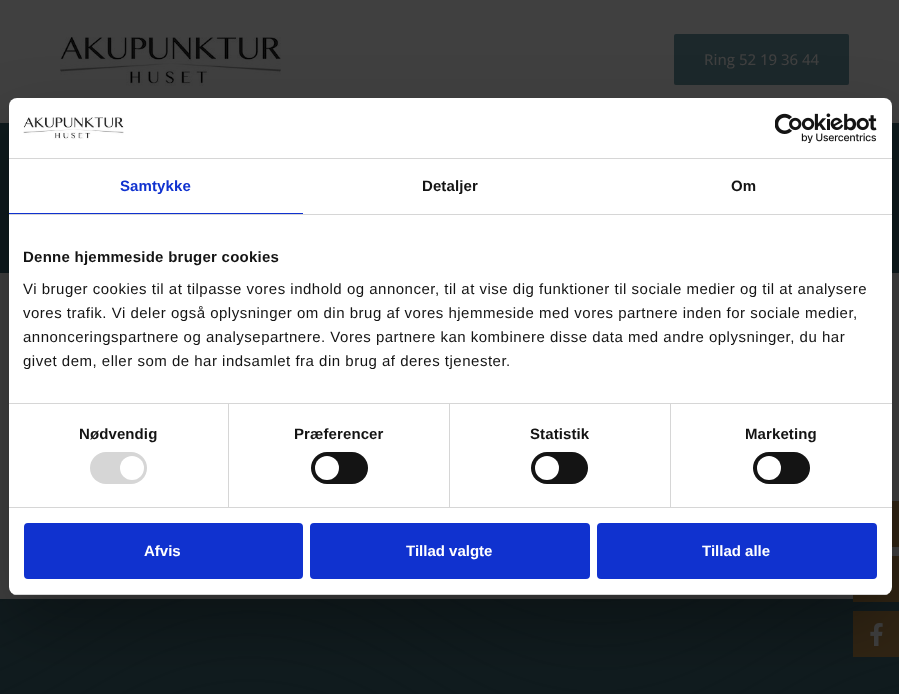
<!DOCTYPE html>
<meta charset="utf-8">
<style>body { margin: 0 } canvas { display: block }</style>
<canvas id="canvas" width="899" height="694"></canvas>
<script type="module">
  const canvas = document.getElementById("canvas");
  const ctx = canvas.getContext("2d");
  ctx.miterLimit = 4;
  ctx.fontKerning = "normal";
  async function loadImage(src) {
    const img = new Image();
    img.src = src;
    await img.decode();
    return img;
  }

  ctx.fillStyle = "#404040";
  ctx.fillRect(0, 0, 899, 694);
  ctx.drawImage(await loadImage("img1.png"), 60, 37, 221, 49);
  ctx.fillStyle = "#1c282b";
  ctx.beginPath();
  ctx.roundRect(674, 34, 175, 51, 2);
  ctx.fill();
  ctx.font = "500 15px Open Sans";
  ctx.fillStyle = "#404040";
  ctx.fillText("Ring 52 19 36 44", 704, 65);
  ctx.fillStyle = "#312514";
  ctx.fillRect(892, 501, 7, 46);
  ctx.fillStyle = "#0e1a1d";
  ctx.fillRect(0, 599, 899, 95);
  ctx.drawImage(await loadImage("img5.png"), 0, 599, 899, 95);
  ctx.fillStyle = "#312514";
  ctx.fillRect(853, 556, 46, 46);
  ctx.fillRect(853, 611, 46, 46);
  ctx.drawImage(await loadImage("img2.png"), 870, 623, 13, 23);
  ctx.fillStyle = "#0e1a1d";
  ctx.fillRect(0, 123, 899, 150);
  ctx.fillStyle = "rgba(0, 0, 0, 0.3)";
  ctx.filter = "blur(34px)";
  ctx.beginPath();
  ctx.roundRect(9, 130, 883, 497, 8);
  ctx.fill();
  ctx.filter = "none";
  ctx.fillStyle = "#ffffff";
  ctx.beginPath();
  ctx.roundRect(9, 98, 883, 497, 8);
  ctx.fill();
  ctx.fillStyle = "#d6d6d6";
  ctx.fillRect(9, 158, 883, 1);
  ctx.drawImage(await loadImage("img3.png"), 23, 117, 101, 23);
  ctx.drawImage(await loadImage("img4.png"), 775, 113, 102, 30);
  ctx.fillRect(9, 214, 883, 1);
  ctx.fillStyle = "#1032cf";
  ctx.fillRect(9, 213, 294, 1);
  ctx.letterSpacing = "0.1px";
  ctx.font = "bold 15px Liberation Sans";
  ctx.fillText("Samtykke", 120, 191);
  ctx.fillStyle = "#141414";
  ctx.fillText("Detaljer", 422, 191);
  ctx.fillText("Om", 731, 191);
  ctx.fillStyle = "#d6d6d6";
  ctx.fillRect(9, 403, 883, 1);
  ctx.letterSpacing = "0.25px";
  ctx.fillStyle = "#141414";
  ctx.fillText("Denne hjemmeside bruger cookies", 23, 262);
  ctx.letterSpacing = "0.5px";
  ctx.font = "15px Liberation Sans";
  ctx.fillText("Vi bruger cookies til at tilpasse vores indhold og annoncer, til at vise dig funktioner til sociale medier og til at analysere", 23, 294);
  ctx.fillText("vores trafik. Vi deler også oplysninger om din brug af vores hjemmeside med vores partnere inden for sociale medier,", 23, 318);
  ctx.fillText("annonceringspartnere og analysepartnere. Vores partnere kan kombinere disse data med andre oplysninger, du har", 23, 342);
  ctx.fillText("givet dem, eller som de har indsamlet fra din brug af deres tjenester.", 23, 366);
  ctx.fillStyle = "#d6d6d6";
  ctx.fillRect(9, 507, 883, 1);
  ctx.fillRect(228, 404, 1, 103);
  ctx.letterSpacing = "0.1px";
  ctx.font = "bold 15px Liberation Sans";
  ctx.fillStyle = "#141414";
  ctx.fillText("Nødvendig", 79, 439);
  ctx.fillStyle = "#d6d6d6";
  ctx.beginPath();
  ctx.roundRect(90, 452, 57, 32, 16);
  ctx.fill();
  ctx.fillStyle = "#ffffff";
  ctx.beginPath();
  ctx.arc(132, 468, 12, 0, Math.PI * 2);
  ctx.fill();
  ctx.fillStyle = "#d6d6d6";
  ctx.fillRect(449, 404, 1, 103);
  ctx.fillStyle = "#141414";
  ctx.fillText("Præferencer", 294, 439);
  ctx.beginPath();
  ctx.roundRect(311, 452, 57, 32, 16);
  ctx.fill();
  ctx.fillStyle = "#ffffff";
  ctx.beginPath();
  ctx.arc(327, 468, 12, 0, Math.PI * 2);
  ctx.fill();
  ctx.fillStyle = "#d6d6d6";
  ctx.fillRect(670, 404, 1, 103);
  ctx.fillStyle = "#141414";
  ctx.fillText("Statistik", 530, 439);
  ctx.beginPath();
  ctx.roundRect(531, 452, 57, 32, 16);
  ctx.fill();
  ctx.fillStyle = "#ffffff";
  ctx.beginPath();
  ctx.arc(547, 468, 12, 0, Math.PI * 2);
  ctx.fill();
  ctx.fillStyle = "#141414";
  ctx.fillText("Marketing", 745, 439);
  ctx.beginPath();
  ctx.roundRect(753, 452, 57, 32, 16);
  ctx.fill();
  ctx.fillStyle = "#ffffff";
  ctx.beginPath();
  ctx.arc(769, 468, 12, 0, Math.PI * 2);
  ctx.fill();
  ctx.save();
  ctx.beginPath();
  ctx.roundRect(9, 98, 883, 497, 8);
  ctx.clip();
  ctx.fillStyle = "#d6d6d6";
  ctx.fillRect(9, 594, 883, 1);
  ctx.restore();
  ctx.fillStyle = "#1032cf";
  ctx.beginPath();
  ctx.roundRect(25, 524, 277, 54, 3);
  ctx.fill();
  ctx.strokeStyle = "#1032cf";
  ctx.lineWidth = 2;
  ctx.stroke();
  ctx.letterSpacing = "0px";
  ctx.fillStyle = "#ffffff";
  ctx.fillText("Afvis", 144, 556);
  ctx.fillStyle = "#1032cf";
  ctx.beginPath();
  ctx.roundRect(311, 524, 278, 54, 3);
  ctx.fill();
  ctx.stroke();
  ctx.fillStyle = "#ffffff";
  ctx.fillText("Tillad valgte", 406, 556);
  ctx.fillStyle = "#1032cf";
  ctx.beginPath();
  ctx.roundRect(598, 524, 278, 54, 3);
  ctx.fill();
  ctx.stroke();
  ctx.fillStyle = "#ffffff";
  ctx.fillText("Tillad alle", 702, 556);
</script>
